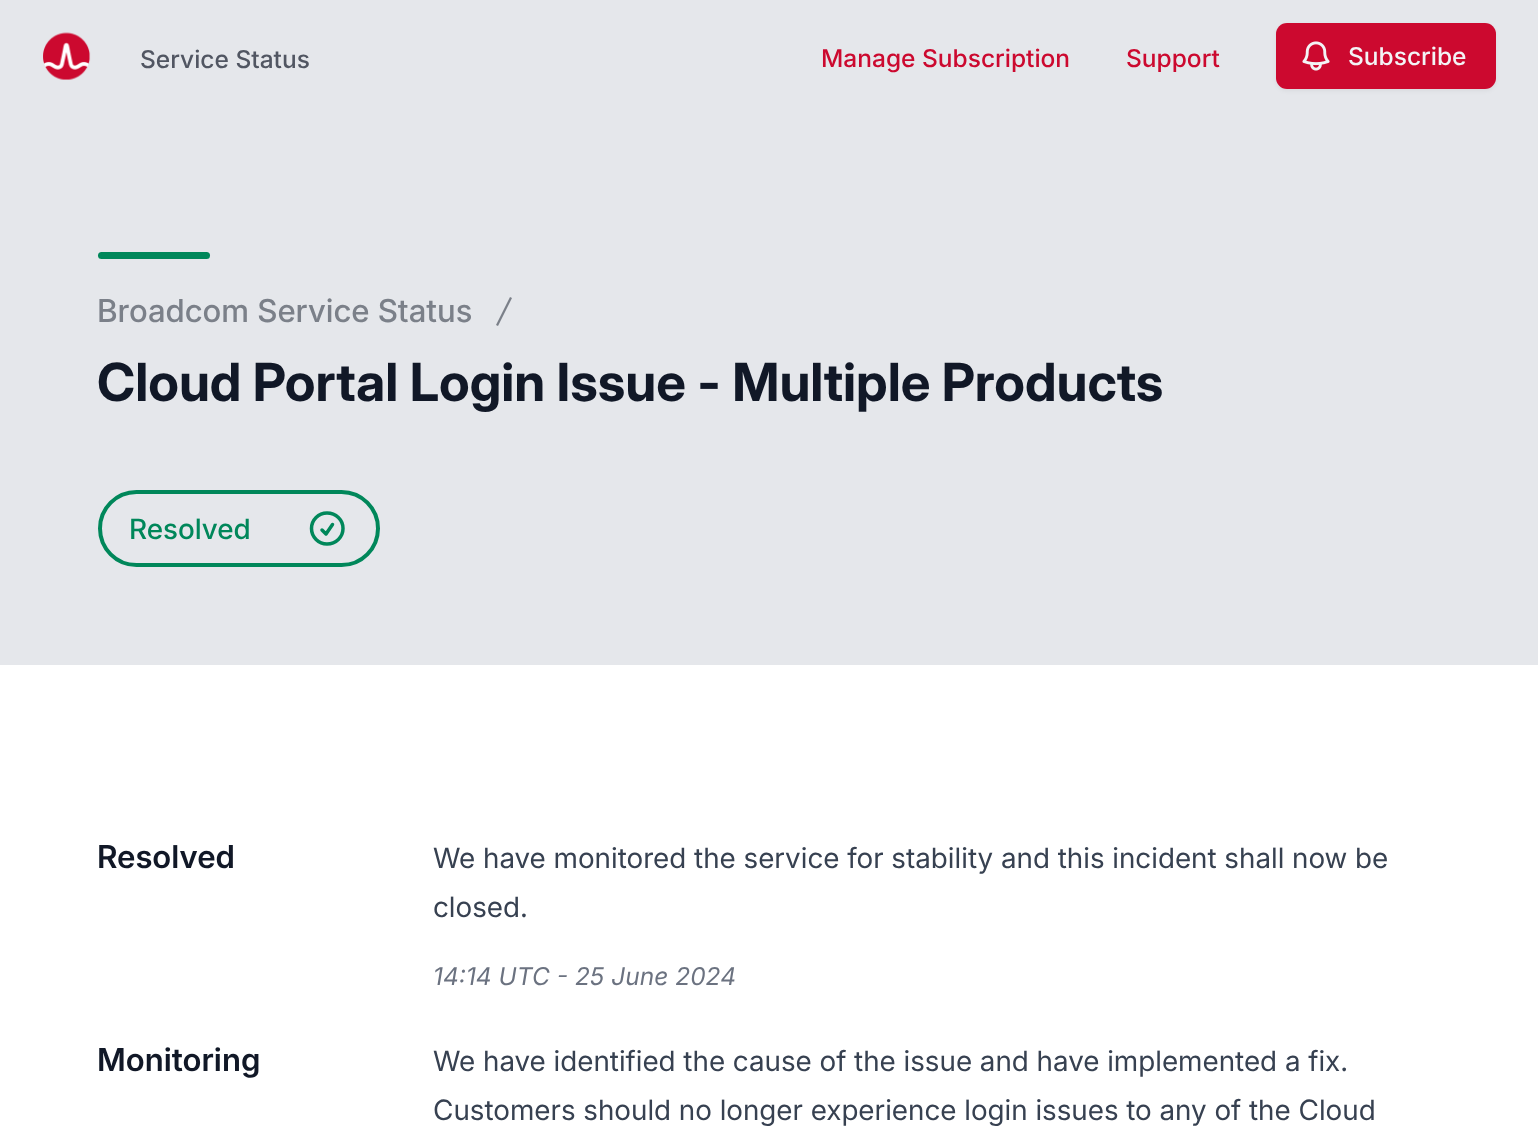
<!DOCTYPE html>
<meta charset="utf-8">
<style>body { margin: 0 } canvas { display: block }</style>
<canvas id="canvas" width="1538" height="1138"></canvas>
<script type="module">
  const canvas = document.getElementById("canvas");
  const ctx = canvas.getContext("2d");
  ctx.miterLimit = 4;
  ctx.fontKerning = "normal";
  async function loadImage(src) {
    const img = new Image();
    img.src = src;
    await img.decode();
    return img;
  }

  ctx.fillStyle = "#ffffff";
  ctx.fillRect(0, 0, 1538, 1138);
  ctx.fillStyle = "#e5e7eb";
  ctx.fillRect(0, 0, 1538, 665);
  ctx.drawImage(await loadImage("img1.png"), 43, 32, 48, 48);
  ctx.font = "500 24.5px 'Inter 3'";
  ctx.fillStyle = "#515662";
  ctx.fillText("Service Status", 140, 68);
  ctx.fillStyle = "#cc092f";
  ctx.fillText("Manage Subscription", 821, 67);
  ctx.fillText("Support", 1126, 67);
  ctx.fillStyle = "rgba(0, 0, 0, 0.05)";
  ctx.filter = "blur(2px)";
  ctx.beginPath();
  ctx.roundRect(1276, 25, 220, 66, 11);
  ctx.fill();
  ctx.filter = "none";
  ctx.fillStyle = "#cc092f";
  ctx.beginPath();
  ctx.roundRect(1276, 23, 220, 66, 11);
  ctx.fill();
  ctx.drawImage(await loadImage("img2.png"), 1302, 41, 28, 30);
  ctx.fillStyle = "#f3f4f6";
  ctx.fillText("Subscribe", 1348, 65);
  ctx.fillStyle = "#00875a";
  ctx.beginPath();
  ctx.roundRect(98, 252, 112, 7, 3.5);
  ctx.fill();
  ctx.font = "500 31.5px Inter";
  ctx.fillStyle = "#7b8089";
  ctx.fillText("Broadcom Service Status", 97, 322);
  ctx.beginPath();
  ctx.moveTo(496, 325);
  ctx.lineTo(510, 297);
  ctx.lineTo(512, 298);
  ctx.lineTo(498, 326);
  ctx.closePath();
  ctx.fill();
  ctx.font = "bold 52.5px Inter";
  ctx.fillStyle = "#111827";
  ctx.fillText("Cloud Portal Login Issue - Multiple Products", 97, 401);
  ctx.beginPath();
  ctx.roundRect(100, 492, 278, 73, 36.5);
  ctx.strokeStyle = "#00875a";
  ctx.lineWidth = 4;
  ctx.stroke();
  ctx.font = "500 28px 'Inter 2'";
  ctx.fillStyle = "#00875a";
  ctx.fillText("Resolved", 129, 539);
  ctx.beginPath();
  ctx.moveTo(322, 530);
  ctx.lineTo(326, 534);
  ctx.lineTo(332.5, 524.5);
  ctx.moveTo(343, 528.5);
  ctx.bezierCurveTo(343, 537, 336, 544, 327, 544);
  ctx.bezierCurveTo(318.5, 544, 311.5, 537, 311.5, 528.5);
  ctx.bezierCurveTo(311.5, 520, 318.5, 513, 327, 513);
  ctx.bezierCurveTo(336, 513, 343, 520, 343, 528.5);
  ctx.closePath();
  ctx.lineWidth = 3.5;
  ctx.lineCap = "round";
  ctx.lineJoin = "round";
  ctx.stroke();
  ctx.font = "600 31.5px Inter";
  ctx.fillStyle = "#111827";
  ctx.fillText("Resolved", 97, 868);
  ctx.font = "28px Inter";
  ctx.fillStyle = "#374151";
  ctx.fillText("We have monitored the service for stability and this incident shall now be", 433, 868);
  ctx.fillText("closed.", 433, 917);
  ctx.font = "italic 24.5px Inter";
  ctx.fillStyle = "#6b7280";
  ctx.fillText("14:14 UTC - 25 June 2024", 433, 985);
  ctx.font = "600 31.5px Inter";
  ctx.fillStyle = "#111827";
  ctx.fillText("Monitoring", 97, 1071);
  ctx.font = "28px Inter";
  ctx.fillStyle = "#374151";
  ctx.fillText("We have identified the cause of the issue and have implemented a fix.", 433, 1071);
  ctx.fillText("Customers should no longer experience login issues to any of the Cloud", 433, 1120);
</script>
